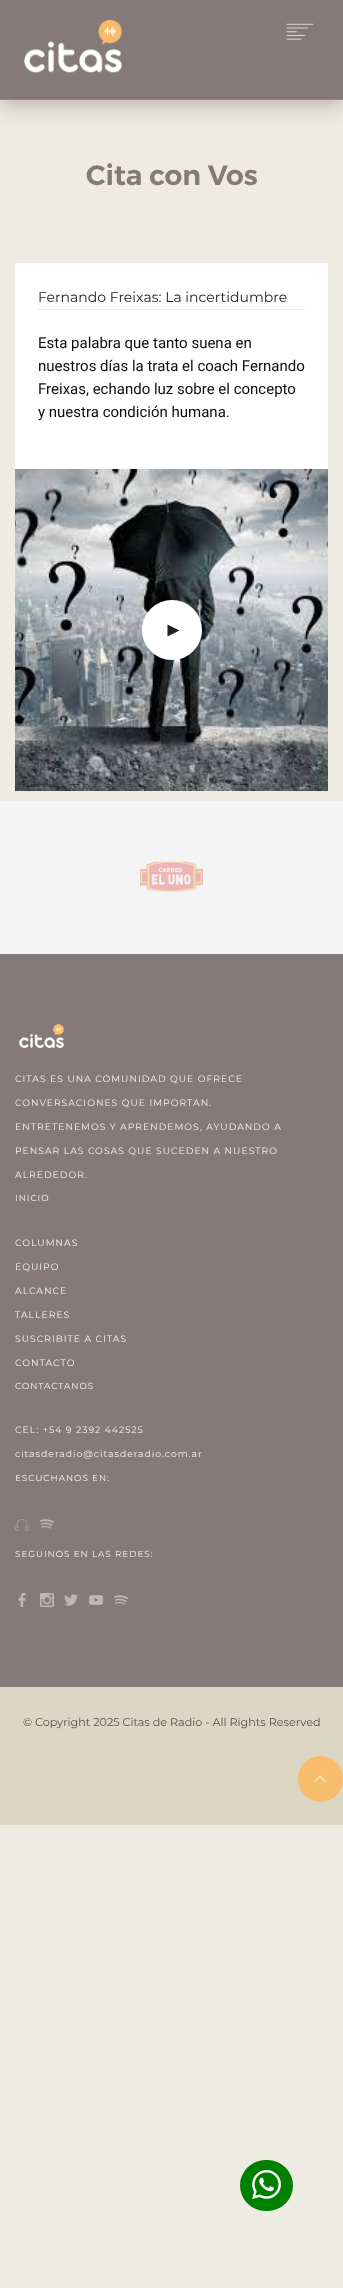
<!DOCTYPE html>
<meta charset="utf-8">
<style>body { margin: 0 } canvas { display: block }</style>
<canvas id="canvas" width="343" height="2288"></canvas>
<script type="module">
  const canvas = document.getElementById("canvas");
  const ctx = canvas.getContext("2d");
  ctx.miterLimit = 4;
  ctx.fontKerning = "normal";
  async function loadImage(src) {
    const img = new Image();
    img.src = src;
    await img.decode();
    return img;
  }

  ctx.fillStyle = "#eeebe3";
  ctx.fillRect(0, 0, 343, 2288);
  ctx.fillStyle = "rgba(219, 63, 38, 0.25)";
  ctx.filter = "blur(10px)";
  ctx.beginPath();
  ctx.rect(0, -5, 343, 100);
  ctx.fill();
  ctx.filter = "none";
  ctx.fillStyle = "rgba(0, 0, 0, 0.15)";
  ctx.filter = "blur(10px)";
  ctx.beginPath();
  ctx.rect(0, 8, 343, 100);
  ctx.fill();
  ctx.filter = "none";
  ctx.fillStyle = "#857a79";
  ctx.fillRect(0, 0, 343, 99);
  ctx.fillStyle = "#918786";
  ctx.fillRect(0, 99, 343, 1);
  ctx.drawImage(await loadImage("img1.png"), 24, 19, 98, 54);
  ctx.drawImage(await loadImage("img2.png"), 286, 23, 28, 17);
  ctx.font = "600 28px Montserrat";
  ctx.fillStyle = "#857a79";
  ctx.fillText("Cita con Vos", 86, 185);
  ctx.fillStyle = "#ffffff";
  ctx.fillRect(15, 263, 313, 206);
  ctx.font = "14px Montserrat";
  ctx.fillStyle = "#232323";
  ctx.fillText("Fernando Freixas: La incertidumbre", 38, 302);
  ctx.fillStyle = "#ebebeb";
  ctx.fillRect(38, 309, 267, 1);
  ctx.font = "15px Roboto";
  ctx.fillStyle = "#0d0d0d";
  ctx.fillText("Esta palabra que tanto suena en", 38, 348);
  ctx.fillText("nuestros días la trata el coach Fernando", 38, 371);
  ctx.fillText("Freixas, echando luz sobre el concepto", 38, 394);
  ctx.fillText("y nuestra condición humana.", 38, 417);
  ctx.drawImage(await loadImage("img3.png"), 15, 469, 313, 322);
  ctx.fillStyle = "#ffffff";
  ctx.beginPath();
  ctx.arc(172, 630, 29, 0, Math.PI * 2);
  ctx.fill();
  ctx.strokeStyle = "#ffffff";
  ctx.lineWidth = 2;
  ctx.stroke();
  ctx.fillStyle = "#232323";
  ctx.beginPath();
  ctx.moveTo(167.5, 636.5);
  ctx.lineTo(167.5, 624.5);
  ctx.lineTo(179.5, 630.5);
  ctx.closePath();
  ctx.fill();
  ctx.fillStyle = "#f4f4f4";
  ctx.fillRect(0, 801, 343, 153);
  ctx.drawImage(await loadImage("img4.png"), 140, 861, 63, 31);
  ctx.fillStyle = "#857a79";
  ctx.fillRect(0, 954, 343, 733);
  ctx.drawImage(await loadImage("img5.png"), 18, 1024, 47, 24);
  ctx.letterSpacing = "1px";
  ctx.font = "9.25px Montserrat";
  ctx.fillStyle = "#f5f5f5";
  ctx.fillText("CITAS ES UNA COMUNIDAD QUE OFRECE", 15, 1082);
  ctx.fillText("CONVERSACIONES QUE IMPORTAN.", 15, 1106);
  ctx.fillText("ENTRETENEMOS Y APRENDEMOS, AYUDANDO A", 15, 1130);
  ctx.fillText("PENSAR LAS COSAS QUE SUCEDEN A NUESTRO", 15, 1154);
  ctx.fillText("ALREDEDOR.", 15, 1178);
  ctx.font = "8.75px Montserrat";
  ctx.fillText("INICIO", 15, 1201);
  ctx.font = "9.25px Montserrat";
  ctx.fillText("COLUMNAS", 15, 1246);
  ctx.fillText("EQUIPO", 15, 1270);
  ctx.fillText("ALCANCE", 15, 1294);
  ctx.fillText("TALLERES", 15, 1318);
  ctx.fillText("SUSCRIBITE A CITAS", 15, 1342);
  ctx.fillText("CONTACTO", 15, 1366);
  ctx.font = "8.75px Montserrat";
  ctx.fillText("CONTACTANOS", 15, 1389);
  ctx.font = "9.25px Montserrat";
  ctx.fillText("CEL: +54 9 2392 442525", 15, 1433);
  ctx.fillText("citasderadio@citasderadio.com.ar", 15, 1457);
  ctx.font = "8.75px Montserrat";
  ctx.fillText("ESCUCHANOS EN:", 15, 1481);
  ctx.drawImage(await loadImage("img6.png"), 15, 1519, 14, 12);
  ctx.drawImage(await loadImage("img7.png"), 40, 1519, 14, 10);
  ctx.fillText("SEGUINOS EN LAS REDES:", 15, 1557);
  ctx.drawImage(await loadImage("img8.png"), 18, 1593, 8, 14);
  ctx.drawImage(await loadImage("img9.png"), 40, 1593, 14, 14);
  ctx.drawImage(await loadImage("img10.png"), 64, 1594, 14, 12);
  ctx.drawImage(await loadImage("img11.png"), 89, 1595, 14, 10);
  ctx.drawImage(await loadImage("img7.png"), 114, 1595, 14, 10);
  ctx.fillStyle = "#dcd7c3";
  ctx.fillRect(0, 1687, 343, 138);
  ctx.letterSpacing = "0px";
  ctx.font = "11.2px Montserrat";
  ctx.fillStyle = "#51504b";
  ctx.fillText("© Copyright 2025 Citas de Radio - All Rights Reserved", 23, 1726);
  ctx.fillStyle = "#f8bd6a";
  ctx.beginPath();
  ctx.roundRect(298, 1756, 45, 46, 22.5);
  ctx.fill();
  ctx.drawImage(await loadImage("img12.png"), 314, 1775, 12, 8);
  ctx.fillStyle = "#008000";
  ctx.beginPath();
  ctx.roundRect(240, 2160, 53, 51, 25.5);
  ctx.fill();
  ctx.drawImage(await loadImage("img13.png"), 252, 2170, 29, 29);
</script>
